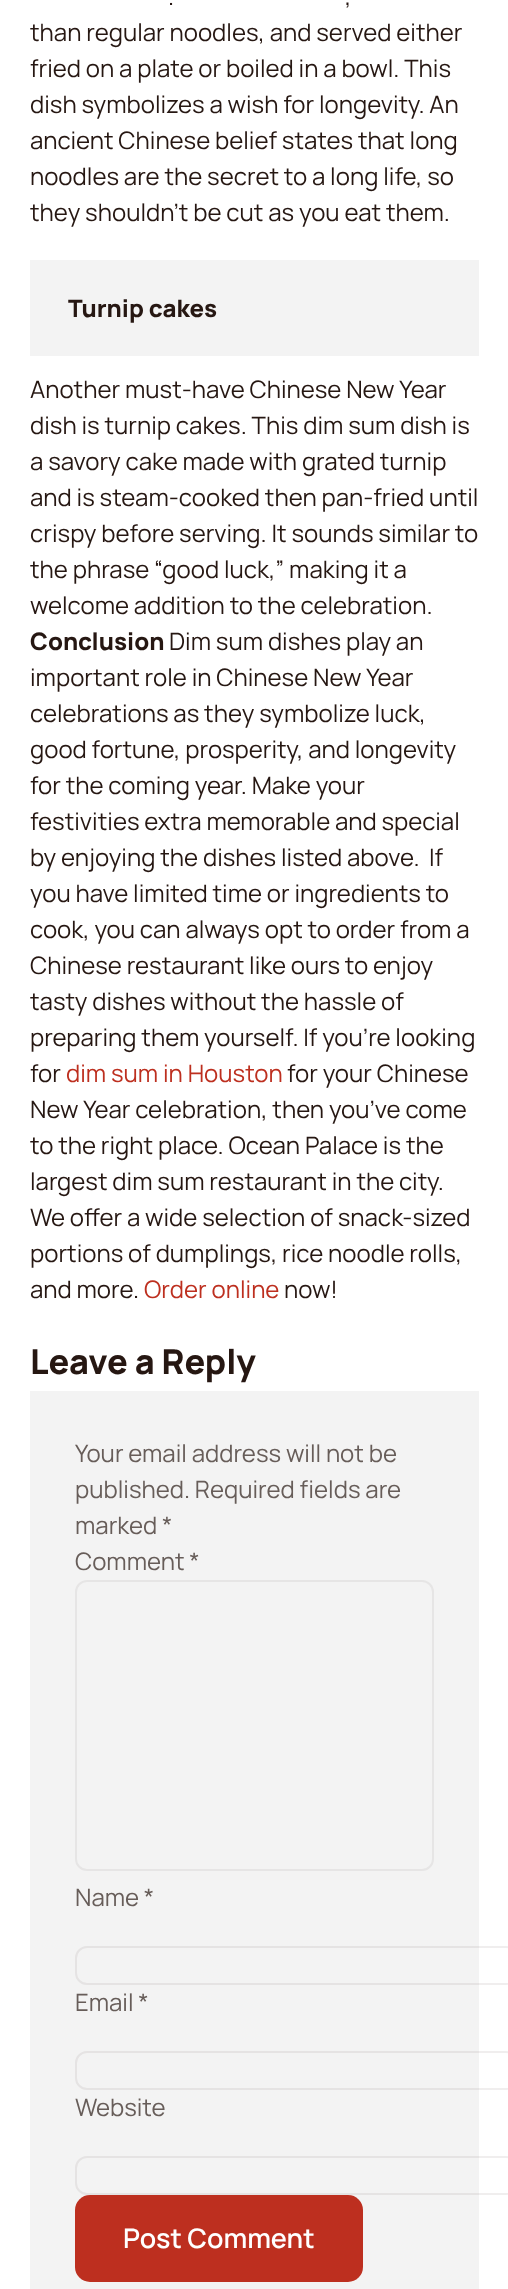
<!DOCTYPE html>
<meta charset="utf-8">
<style>body { margin: 0 } canvas { display: block }</style>
<canvas id="canvas" width="508" height="2289"></canvas>
<script type="module">
  const canvas = document.getElementById("canvas");
  const ctx = canvas.getContext("2d");
  ctx.miterLimit = 4;
  ctx.fontKerning = "normal";

  ctx.fillStyle = "#ffffff";
  ctx.fillRect(0, 0, 508, 2289);
  ctx.font = "24px Manrope";
  ctx.fillStyle = "#261712";
  ctx.fillText(".", 168, 5);
  ctx.fillText(",", 345, 5);
  ctx.fillText("than regular noodles, and served either", 30, 41);
  ctx.fillText("fried on a plate or boiled in a bowl. This", 30, 77);
  ctx.fillText("dish symbolizes a wish for longevity. An", 30, 113);
  ctx.fillText("ancient Chinese belief states that long", 30, 149);
  ctx.fillText("noodles are the secret to a long life, so", 30, 185);
  ctx.fillText("they shouldn’t be cut as you eat them.", 30, 221);
  ctx.fillStyle = "#f3f3f3";
  ctx.fillRect(30, 260, 449, 96);
  ctx.font = "800 24px Manrope";
  ctx.fillStyle = "#261712";
  ctx.fillText("Turnip cakes", 68, 317);
  ctx.font = "24px Manrope";
  ctx.fillText("Another must-have Chinese New Year", 30, 398);
  ctx.fillText("dish is turnip cakes. This dim sum dish is", 30, 434);
  ctx.fillText("a savory cake made with grated turnip", 30, 470);
  ctx.fillText("and is steam-cooked then pan-fried until", 30, 506);
  ctx.fillText("crispy before serving. It sounds similar to", 30, 542);
  ctx.fillText("the phrase “good luck,” making it a", 30, 578);
  ctx.fillText("welcome addition to the celebration.", 30, 614);
  ctx.font = "800 24px Manrope";
  ctx.fillText("Conclusion", 30, 650);
  ctx.font = "24px Manrope";
  ctx.fillText("Dim sum dishes play an", 169, 650);
  ctx.fillText("important role in Chinese New Year", 30, 686);
  ctx.fillText("celebrations as they symbolize luck,", 30, 722);
  ctx.fillText("good fortune, prosperity, and longevity", 30, 758);
  ctx.fillText("for the coming year. Make your", 30, 794);
  ctx.fillText("festivities extra memorable and special", 30, 830);
  ctx.fillText("by enjoying the dishes listed above.", 30, 866);
  ctx.fillText("If", 429, 866);
  ctx.fillText("you have limited time or ingredients to", 30, 902);
  ctx.fillText("cook, you can always opt to order from a", 30, 938);
  ctx.fillText("Chinese restaurant like ours to enjoy", 30, 974);
  ctx.fillText("tasty dishes without the hassle of", 30, 1010);
  ctx.fillText("preparing them yourself. If you’re looking", 30, 1046);
  ctx.fillText("for", 30, 1082);
  ctx.fillStyle = "#bd2f1f";
  ctx.fillText("dim sum in Houston", 66, 1082);
  ctx.fillStyle = "#261712";
  ctx.fillText("for your Chinese", 287, 1082);
  ctx.fillText("New Year celebration, then you’ve come", 30, 1118);
  ctx.fillText("to the right place. Ocean Palace is the", 30, 1154);
  ctx.fillText("largest dim sum restaurant in the city.", 30, 1190);
  ctx.fillText("We offer a wide selection of snack-sized", 30, 1226);
  ctx.fillText("portions of dumplings, rice noodle rolls,", 30, 1262);
  ctx.fillText("and more.", 30, 1298);
  ctx.fillStyle = "#bd2f1f";
  ctx.fillText("Order online", 144, 1298);
  ctx.fillStyle = "#261712";
  ctx.fillText("now!", 284, 1298);
  ctx.font = "800 34.25px Manrope";
  ctx.fillText("Leave a Reply", 30, 1374);
  ctx.fillStyle = "#f3f3f3";
  ctx.fillRect(30, 1391, 449, 898);
  ctx.font = "24px Manrope";
  ctx.fillStyle = "#675d59";
  ctx.fillText("Your email address will not be", 75, 1462);
  ctx.fillText("published. Required fields are", 75, 1498);
  ctx.fillText("marked *", 75, 1534);
  ctx.fillText("Comment *", 75, 1570);
  ctx.beginPath();
  ctx.roundRect(76, 1581, 357, 289, 11);
  ctx.strokeStyle = "#e6e5e5";
  ctx.lineWidth = 2;
  ctx.stroke();
  ctx.fillText("Name *", 75, 1906);
  ctx.beginPath();
  ctx.roundRect(76, 1947, 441, 37, 11);
  ctx.strokeStyle = "rgba(104, 93, 90, 0.1)";
  ctx.stroke();
  ctx.fillText("Email *", 75, 2011);
  ctx.beginPath();
  ctx.roundRect(76, 2052, 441, 37, 11);
  ctx.stroke();
  ctx.fillText("Website", 75, 2116);
  ctx.beginPath();
  ctx.roundRect(76, 2157, 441, 37, 11);
  ctx.stroke();
  ctx.fillStyle = "#bd2f1f";
  ctx.beginPath();
  ctx.roundRect(75, 2195, 288, 87, 15);
  ctx.fill();
  ctx.font = "600 27px Manrope";
  ctx.fillStyle = "#ffffff";
  ctx.fillText("Post Comment", 123, 2248);
</script>
